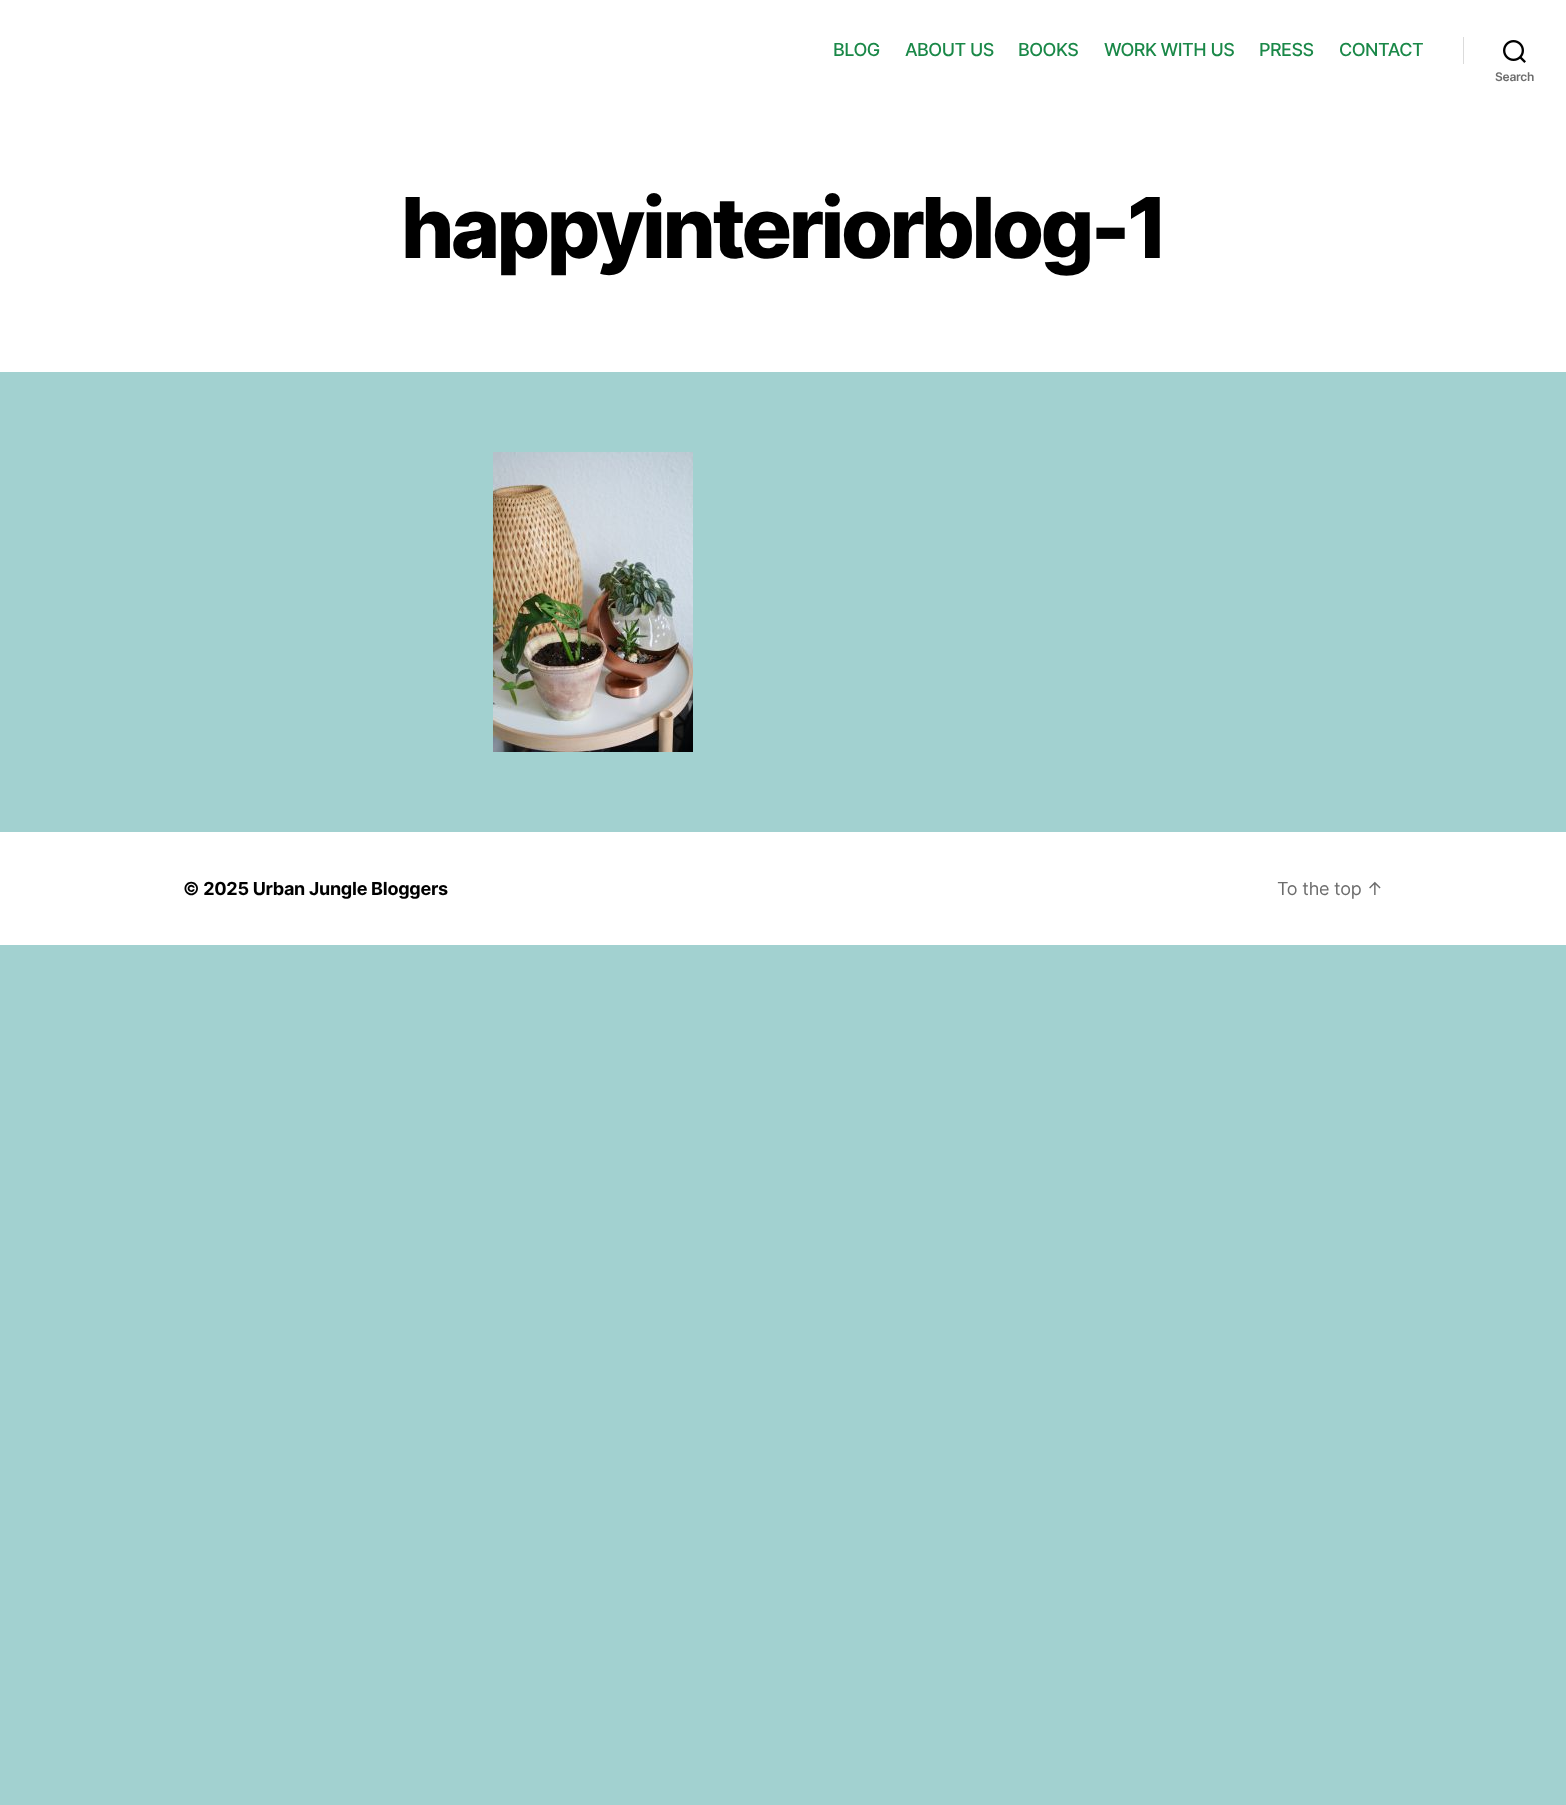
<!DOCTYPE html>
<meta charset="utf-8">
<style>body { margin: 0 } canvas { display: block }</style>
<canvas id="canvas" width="1566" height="1805"></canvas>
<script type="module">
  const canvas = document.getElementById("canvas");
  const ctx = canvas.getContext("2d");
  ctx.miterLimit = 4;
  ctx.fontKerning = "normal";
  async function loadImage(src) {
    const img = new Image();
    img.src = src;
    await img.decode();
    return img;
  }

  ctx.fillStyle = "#a2d1d0";
  ctx.fillRect(0, 0, 1566, 1805);
  ctx.fillStyle = "#ffffff";
  ctx.fillRect(0, 0, 1566, 372);
  ctx.letterSpacing = "-0.5px";
  ctx.font = "500 18px Inter";
  ctx.fillStyle = "#1a8848";
  ctx.fillText("BLOG", 833, 56);
  ctx.fillText("ABOUT US", 905, 56);
  ctx.fillText("BOOKS", 1018, 56);
  ctx.fillText("WORK WITH US", 1104, 56);
  ctx.fillText("PRESS", 1259, 56);
  ctx.fillText("CONTACT", 1339, 56);
  ctx.fillStyle = "#dbdbdb";
  ctx.fillRect(1463, 37, 1, 27);
  ctx.drawImage(await loadImage("img1.png"), 1503, 40, 23, 23);
  ctx.letterSpacing = "-0.25px";
  ctx.font = "600 12px Inter";
  ctx.fillStyle = "#6d6d6d";
  ctx.fillText("Search", 1495, 81);
  ctx.letterSpacing = "-3.5px";
  ctx.font = "800 84px Inter";
  ctx.fillStyle = "#000000";
  ctx.fillText("happyinteriorblog-1", 401, 258);
  ctx.drawImage(await loadImage("img2.png"), 493, 452, 200, 300);
  ctx.fillStyle = "#ffffff";
  ctx.fillRect(0, 832, 1566, 113);
  ctx.letterSpacing = "-0.25px";
  ctx.font = "bold 18px Inter";
  ctx.fillStyle = "#000000";
  ctx.fillText("© 2025 Urban Jungle Bloggers", 183, 895);
  ctx.font = "18px Inter";
  ctx.fillStyle = "#6d6d6d";
  ctx.fillText("To the top ↑", 1277, 895);
</script>
